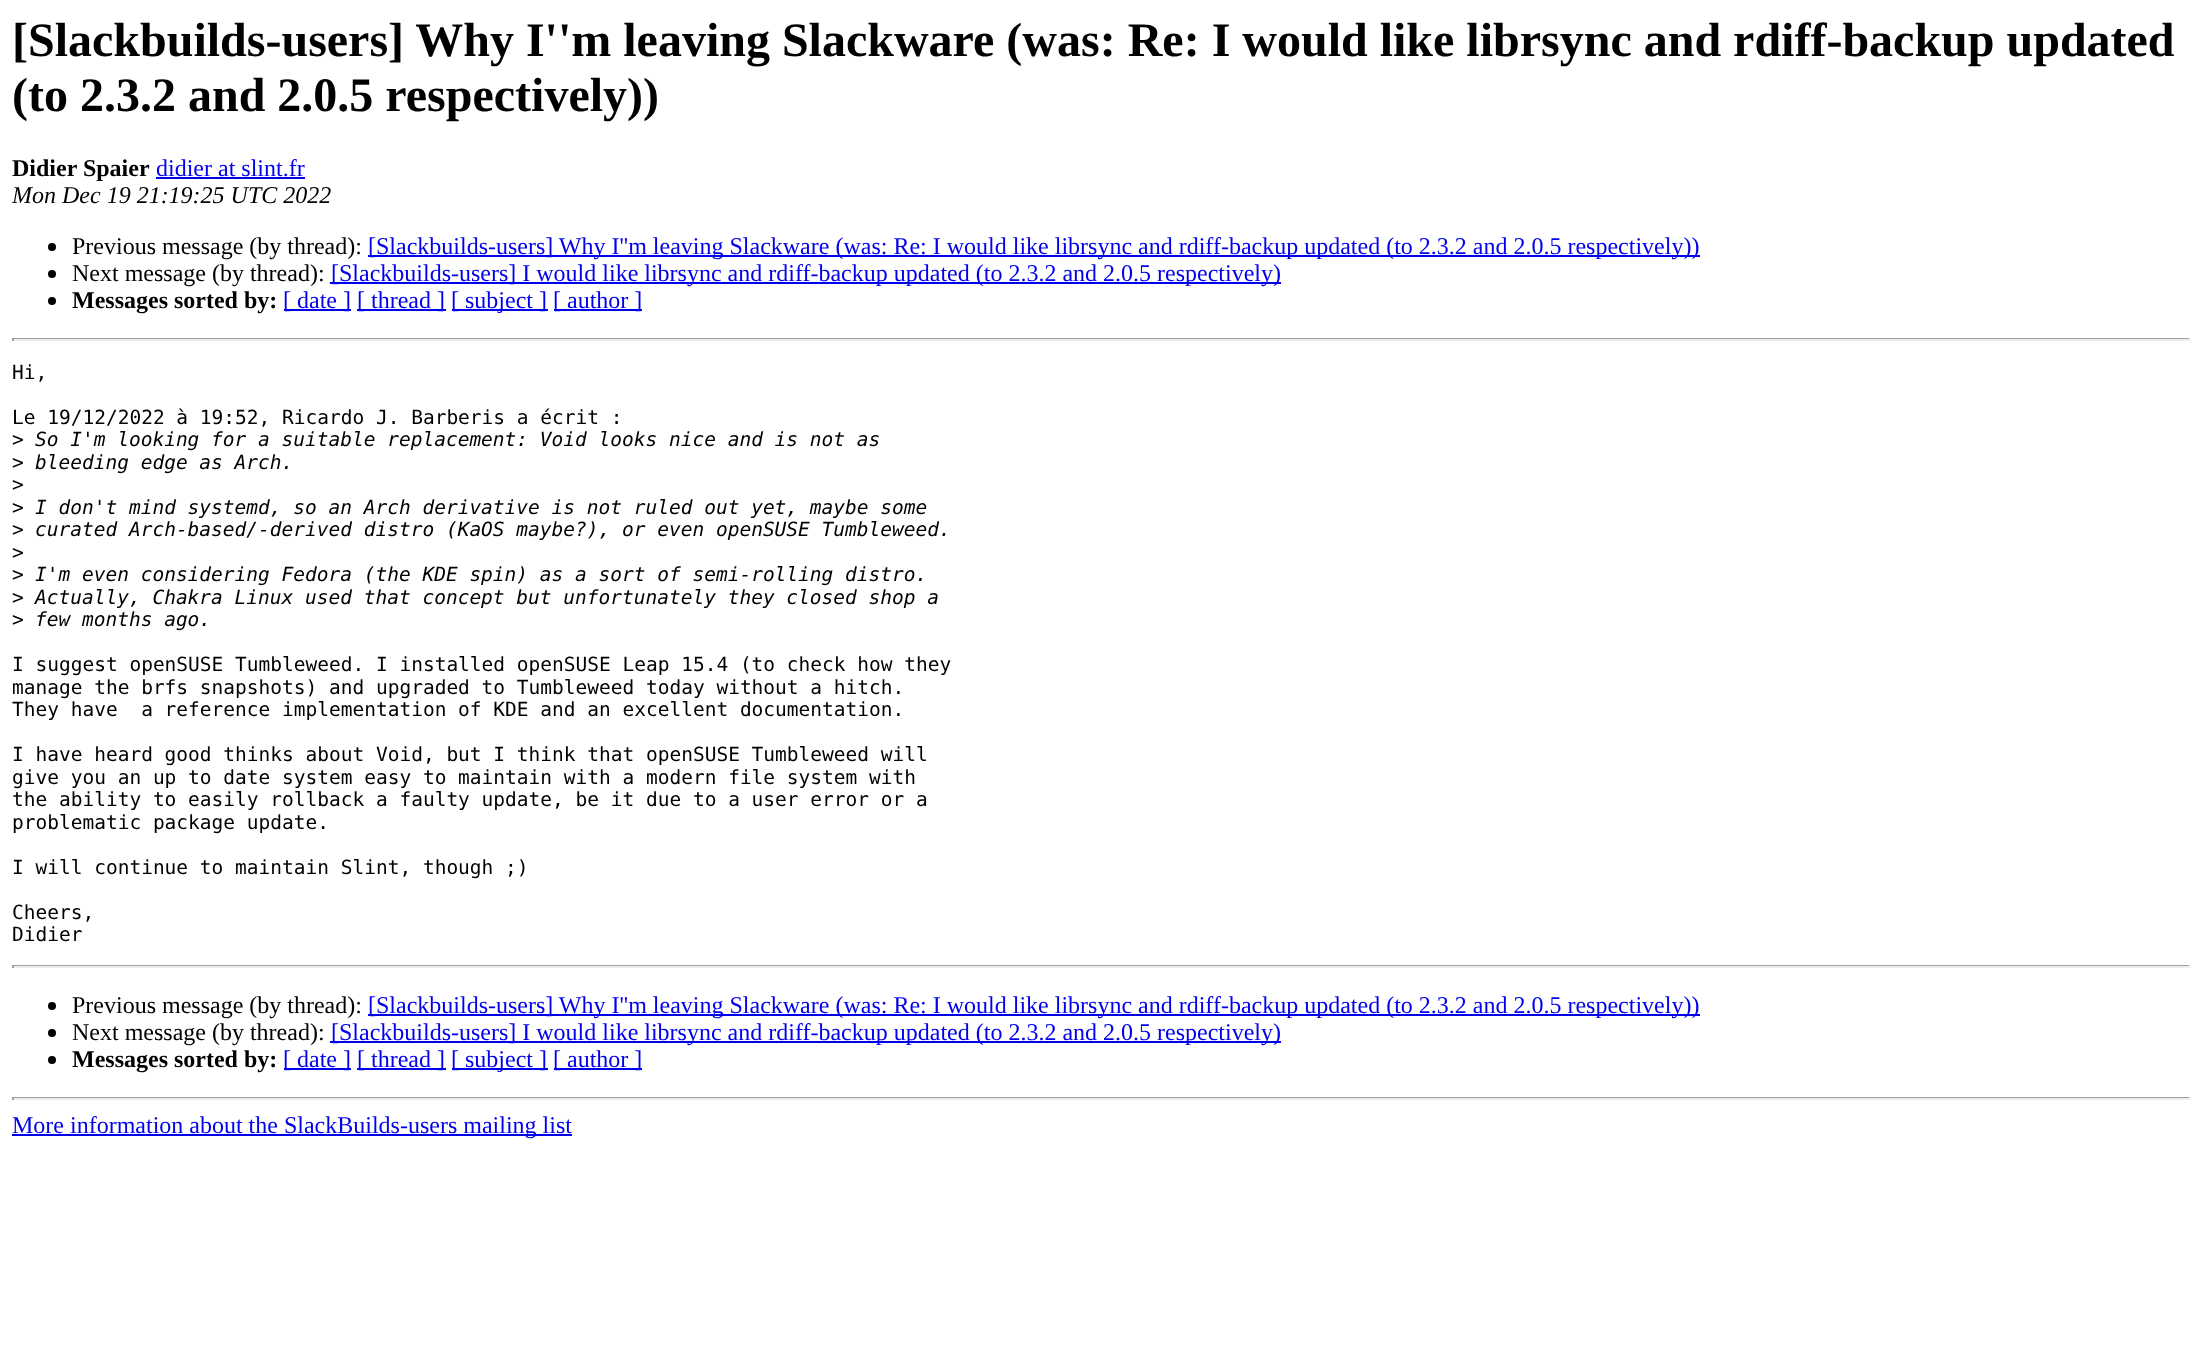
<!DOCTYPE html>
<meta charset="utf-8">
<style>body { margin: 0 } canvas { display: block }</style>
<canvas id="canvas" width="2201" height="1364"></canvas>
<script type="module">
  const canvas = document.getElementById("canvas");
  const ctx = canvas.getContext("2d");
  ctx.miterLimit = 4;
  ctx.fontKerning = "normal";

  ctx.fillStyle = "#ffffff";
  ctx.fillRect(0, 0, 2201, 1364);
  ctx.font = "bold 48px Liberation Serif";
  ctx.fillStyle = "#000000";
  ctx.fillText("[Slackbuilds-users] Why I''m leaving Slackware (was: Re: I would like librsync and rdiff-backup updated", 12, 56);
  ctx.fillText("(to 2.3.2 and 2.0.5 respectively))", 12, 111);
  ctx.font = "bold 24px Liberation Serif";
  ctx.fillText("Didier Spaier", 12, 176);
  ctx.font = "24px Liberation Serif";
  ctx.fillStyle = "#0000ee";
  ctx.fillText("didier at slint.fr", 156, 176);
  ctx.fillRect(156, 177, 149, 2);
  ctx.font = "italic 24px Liberation Serif";
  ctx.fillStyle = "#000000";
  ctx.fillText("Mon Dec 19 21:19:25 UTC 2022", 12, 203);
  ctx.beginPath();
  ctx.arc(52, 247, 4, 0, Math.PI * 2);
  ctx.fill();
  ctx.font = "24px Liberation Serif";
  ctx.fillText("Previous message (by thread):", 72, 254);
  ctx.fillStyle = "#0000ee";
  ctx.fillRect(368, 255, 1332, 2);
  ctx.fillText("[Slackbuilds-users] Why I''m leaving Slackware (was: Re: I would like librsync and rdiff-backup updated (to 2.3.2 and 2.0.5 respectively))", 368, 254);
  ctx.fillStyle = "#000000";
  ctx.beginPath();
  ctx.arc(52, 274, 4, 0, Math.PI * 2);
  ctx.fill();
  ctx.fillText("Next message (by thread):", 72, 281);
  ctx.fillStyle = "#0000ee";
  ctx.fillRect(330, 282, 951, 2);
  ctx.fillText("[Slackbuilds-users] I would like librsync and rdiff-backup updated (to 2.3.2 and 2.0.5 respectively)", 331, 281);
  ctx.fillStyle = "#000000";
  ctx.beginPath();
  ctx.arc(52, 301, 4, 0, Math.PI * 2);
  ctx.fill();
  ctx.font = "bold 24px Liberation Serif";
  ctx.fillText("Messages sorted by:", 72, 308);
  ctx.fillStyle = "#0000ee";
  ctx.fillRect(284, 309, 67, 2);
  ctx.font = "24px Liberation Serif";
  ctx.fillText("[ date ]", 283, 308);
  ctx.fillRect(357, 309, 89, 2);
  ctx.fillText("[ thread ]", 357, 308);
  ctx.fillRect(452, 309, 96, 2);
  ctx.fillText("[ subject ]", 451, 308);
  ctx.fillRect(554, 309, 88, 2);
  ctx.fillText("[ author ]", 553, 308);
  ctx.fillStyle = "#9f9f9f";
  ctx.fillRect(12, 338, 2178, 1);
  ctx.fillStyle = "#eeeeee";
  ctx.fillRect(2189, 338, 2, 3);
  ctx.fillRect(12, 339, 2178, 2);
  ctx.fillStyle = "#9f9f9f";
  ctx.fillRect(12, 338, 2, 3);
  ctx.font = "19.5px DejaVu Sans Mono";
  ctx.fillStyle = "#000000";
  ctx.fillText("Hi,", 12, 379);
  ctx.fillText("Le 19/12/2022 à 19:52, Ricardo J. Barberis a écrit :", 12, 424);
  ctx.fillText(">", 12, 446);
  ctx.font = "italic 19.5px DejaVu Sans Mono";
  ctx.fillText("So I'm looking for a suitable replacement: Void looks nice and is not as", 35, 446);
  ctx.font = "19.5px DejaVu Sans Mono";
  ctx.fillText(">", 12, 469);
  ctx.font = "italic 19.5px DejaVu Sans Mono";
  ctx.fillText("bleeding edge as Arch.", 35, 469);
  ctx.font = "19.5px DejaVu Sans Mono";
  ctx.fillText(">", 12, 491);
  ctx.fillText(">", 12, 514);
  ctx.font = "italic 19.5px DejaVu Sans Mono";
  ctx.fillText("I don't mind systemd, so an Arch derivative is not ruled out yet, maybe some", 35, 514);
  ctx.font = "19.5px DejaVu Sans Mono";
  ctx.fillText(">", 12, 536);
  ctx.font = "italic 19.5px DejaVu Sans Mono";
  ctx.fillText("curated Arch-based/-derived distro (KaOS maybe?), or even openSUSE Tumbleweed.", 35, 536);
  ctx.font = "19.5px DejaVu Sans Mono";
  ctx.fillText(">", 12, 559);
  ctx.fillText(">", 12, 581);
  ctx.font = "italic 19.5px DejaVu Sans Mono";
  ctx.fillText("I'm even considering Fedora (the KDE spin) as a sort of semi-rolling distro.", 35, 581);
  ctx.font = "19.5px DejaVu Sans Mono";
  ctx.fillText(">", 12, 604);
  ctx.font = "italic 19.5px DejaVu Sans Mono";
  ctx.fillText("Actually, Chakra Linux used that concept but unfortunately they closed shop a", 35, 604);
  ctx.font = "19.5px DejaVu Sans Mono";
  ctx.fillText(">", 12, 626);
  ctx.font = "italic 19.5px DejaVu Sans Mono";
  ctx.fillText("few months ago.", 35, 626);
  ctx.font = "19.5px DejaVu Sans Mono";
  ctx.fillText("I suggest openSUSE Tumbleweed. I installed openSUSE Leap 15.4 (to check how they", 12, 671);
  ctx.fillText("manage the brfs snapshots) and upgraded to Tumbleweed today without a hitch.", 12, 694);
  ctx.fillText("They have  a reference implementation of KDE and an excellent documentation.", 12, 716);
  ctx.fillText("I have heard good thinks about Void, but I think that openSUSE Tumbleweed will", 12, 761);
  ctx.fillText("give you an up to date system easy to maintain with a modern file system with", 12, 784);
  ctx.fillText("the ability to easily rollback a faulty update, be it due to a user error or a", 12, 806);
  ctx.fillText("problematic package update.", 12, 829);
  ctx.fillText("I will continue to maintain Slint, though ;)", 12, 874);
  ctx.fillText("Cheers,", 12, 919);
  ctx.fillText("Didier", 12, 941);
  ctx.fillStyle = "#9f9f9f";
  ctx.fillRect(12, 965, 2178, 1);
  ctx.fillStyle = "#eeeeee";
  ctx.fillRect(2189, 965, 2, 3);
  ctx.fillRect(12, 966, 2178, 2);
  ctx.fillStyle = "#9f9f9f";
  ctx.fillRect(12, 965, 2, 3);
  ctx.fillStyle = "#000000";
  ctx.beginPath();
  ctx.arc(52, 1006, 4, 0, Math.PI * 2);
  ctx.fill();
  ctx.font = "24px Liberation Serif";
  ctx.fillText("Previous message (by thread):", 72, 1013);
  ctx.fillStyle = "#0000ee";
  ctx.fillRect(368, 1014, 1332, 2);
  ctx.fillText("[Slackbuilds-users] Why I''m leaving Slackware (was: Re: I would like librsync and rdiff-backup updated (to 2.3.2 and 2.0.5 respectively))", 368, 1013);
  ctx.fillStyle = "#000000";
  ctx.beginPath();
  ctx.arc(52, 1033, 4, 0, Math.PI * 2);
  ctx.fill();
  ctx.fillText("Next message (by thread):", 72, 1040);
  ctx.fillStyle = "#0000ee";
  ctx.fillRect(330, 1041, 951, 2);
  ctx.fillText("[Slackbuilds-users] I would like librsync and rdiff-backup updated (to 2.3.2 and 2.0.5 respectively)", 331, 1040);
  ctx.fillStyle = "#000000";
  ctx.beginPath();
  ctx.arc(52, 1060, 4, 0, Math.PI * 2);
  ctx.fill();
  ctx.font = "bold 24px Liberation Serif";
  ctx.fillText("Messages sorted by:", 72, 1067);
  ctx.fillStyle = "#0000ee";
  ctx.fillRect(284, 1068, 67, 2);
  ctx.font = "24px Liberation Serif";
  ctx.fillText("[ date ]", 283, 1067);
  ctx.fillRect(357, 1068, 89, 2);
  ctx.fillText("[ thread ]", 357, 1067);
  ctx.fillRect(452, 1068, 96, 2);
  ctx.fillText("[ subject ]", 451, 1067);
  ctx.fillRect(554, 1068, 88, 2);
  ctx.fillText("[ author ]", 553, 1067);
  ctx.fillStyle = "#9f9f9f";
  ctx.fillRect(12, 1097, 2178, 1);
  ctx.fillStyle = "#eeeeee";
  ctx.fillRect(2189, 1097, 2, 3);
  ctx.fillRect(12, 1098, 2178, 2);
  ctx.fillStyle = "#9f9f9f";
  ctx.fillRect(12, 1097, 2, 3);
  ctx.fillStyle = "#0000ee";
  ctx.fillRect(12, 1134, 560, 2);
  ctx.fillText("More information about the SlackBuilds-users mailing list", 12, 1133);
</script>
